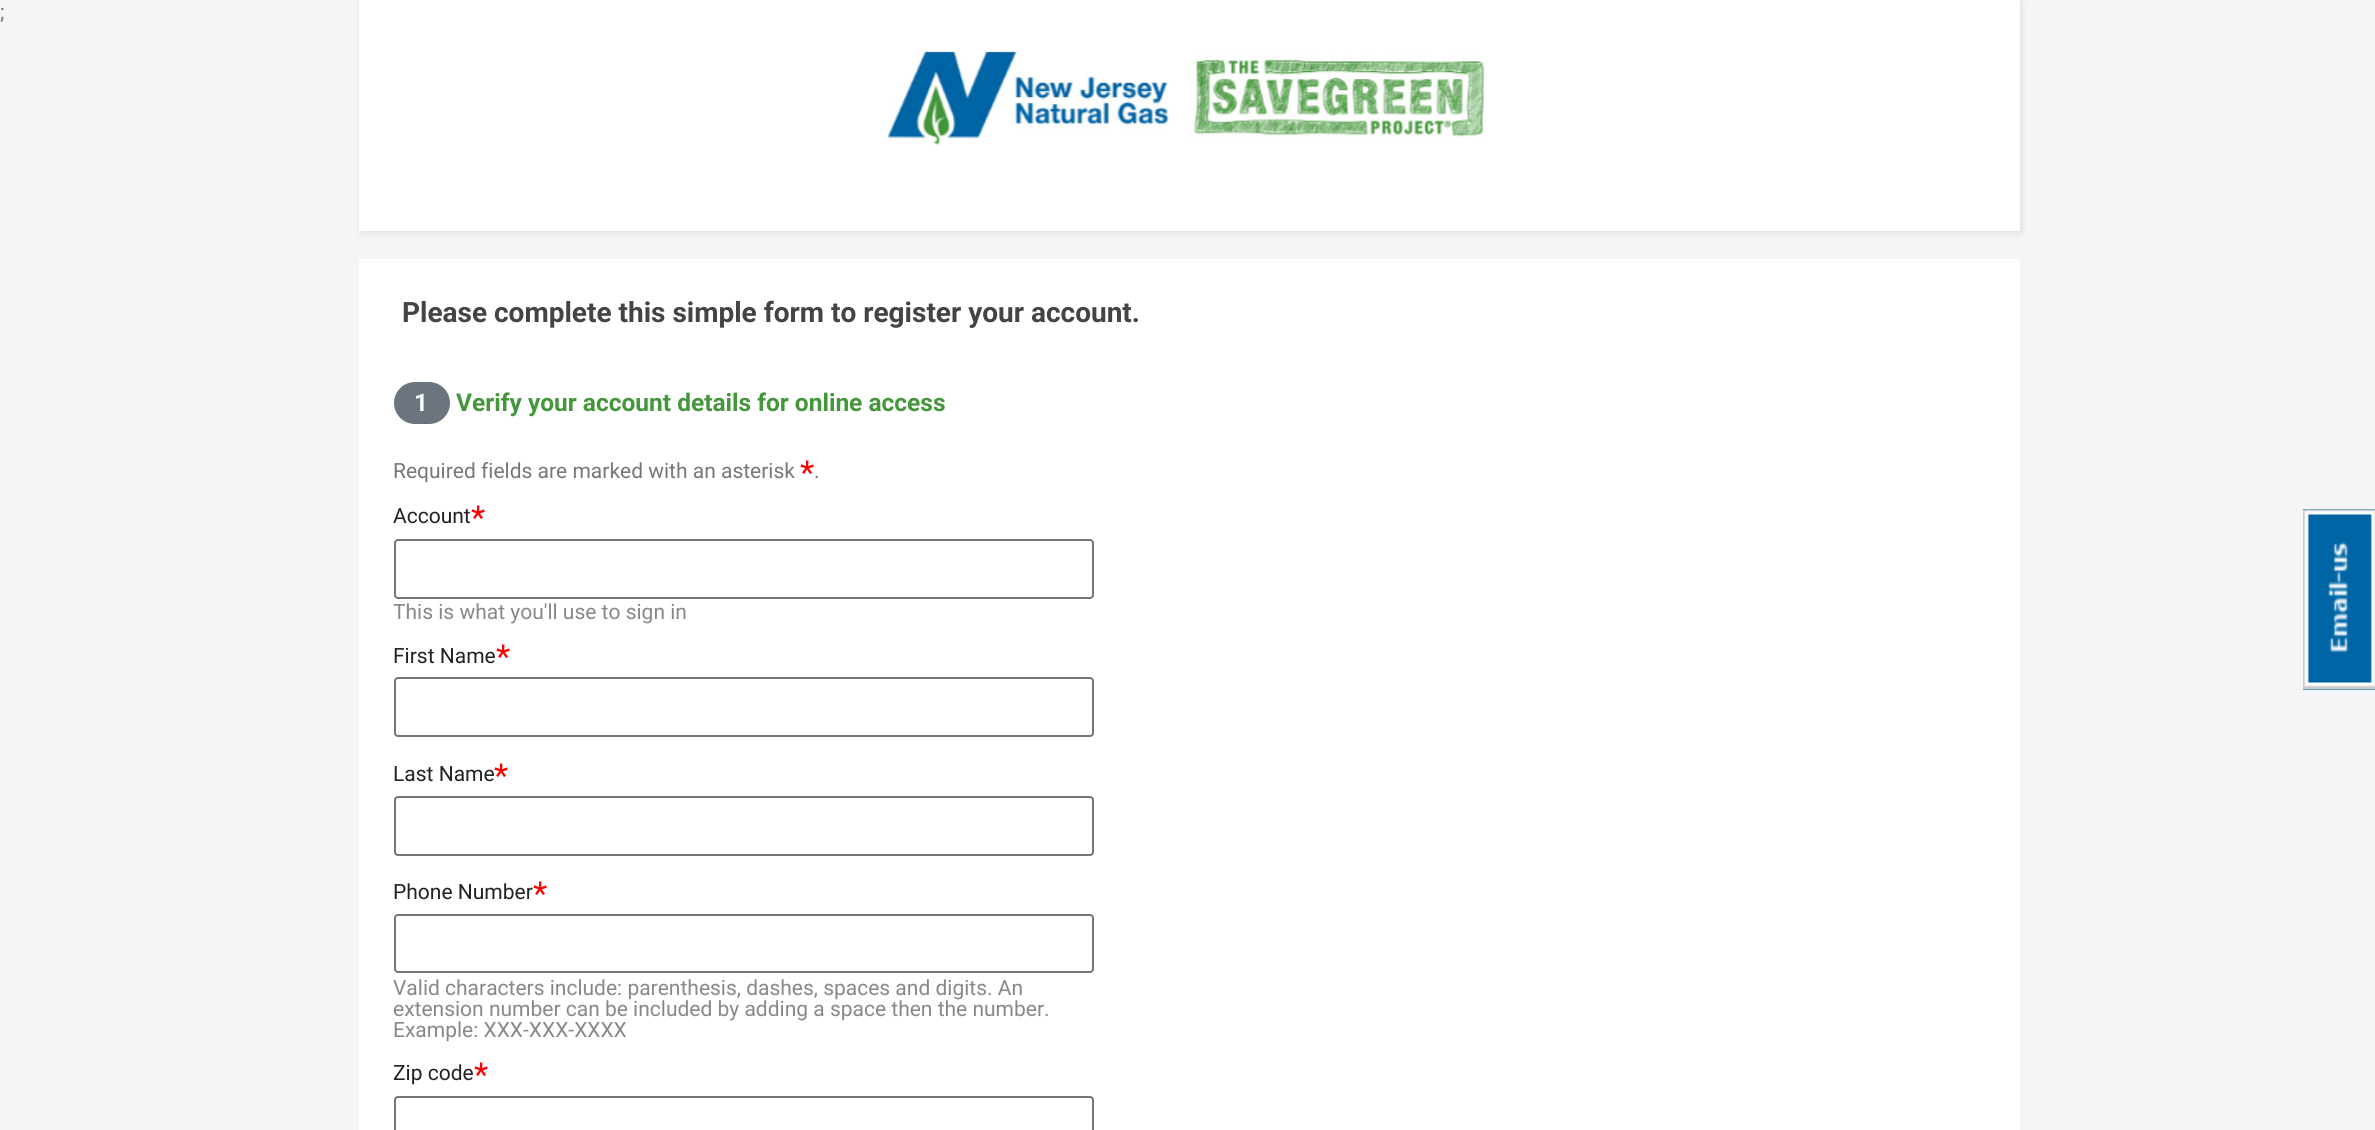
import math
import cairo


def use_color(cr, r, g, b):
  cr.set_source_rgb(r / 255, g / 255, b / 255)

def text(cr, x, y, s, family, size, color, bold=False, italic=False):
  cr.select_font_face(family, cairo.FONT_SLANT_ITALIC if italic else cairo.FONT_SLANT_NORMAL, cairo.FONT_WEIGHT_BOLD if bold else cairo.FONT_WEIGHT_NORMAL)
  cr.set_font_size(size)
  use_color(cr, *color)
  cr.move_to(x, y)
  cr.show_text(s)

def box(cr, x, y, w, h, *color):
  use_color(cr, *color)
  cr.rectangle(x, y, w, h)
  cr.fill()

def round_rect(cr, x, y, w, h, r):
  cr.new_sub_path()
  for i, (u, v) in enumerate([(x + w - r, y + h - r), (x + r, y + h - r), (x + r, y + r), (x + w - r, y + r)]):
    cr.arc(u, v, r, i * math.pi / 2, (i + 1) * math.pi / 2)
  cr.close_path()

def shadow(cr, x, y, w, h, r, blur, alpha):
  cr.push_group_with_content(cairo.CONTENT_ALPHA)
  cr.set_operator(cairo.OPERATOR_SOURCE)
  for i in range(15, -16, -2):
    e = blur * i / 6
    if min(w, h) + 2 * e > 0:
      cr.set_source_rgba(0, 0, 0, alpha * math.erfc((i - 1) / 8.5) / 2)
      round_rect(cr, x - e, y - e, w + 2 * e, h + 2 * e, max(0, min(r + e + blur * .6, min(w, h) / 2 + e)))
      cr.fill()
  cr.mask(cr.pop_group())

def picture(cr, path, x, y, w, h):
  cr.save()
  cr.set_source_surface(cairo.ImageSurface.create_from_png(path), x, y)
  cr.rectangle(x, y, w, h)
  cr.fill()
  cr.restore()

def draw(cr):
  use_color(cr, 244, 245, 247)
  cr.paint()
  use_color(cr, 0, 0, 0)
  shadow(cr, 361, 2, 1660, 231, 0, 3.5, 0.1)
  box(cr, 359, 0, 1661, 231, 255, 255, 255)
  picture(cr, "img_01.png", 887, 50, 598, 96)
  box(cr, 359, 259, 1661, 871, 255, 255, 255)
  use_color(cr, 108, 117, 125)
  round_rect(cr, 394, 382, 56, 42, 21)
  cr.fill()
  round_rect(cr, 395, 540, 698, 58, 3)
  use_color(cr, 118, 118, 118)
  cr.stroke()
  round_rect(cr, 395, 678, 698, 58, 3)
  cr.stroke()
  round_rect(cr, 395, 797, 698, 58, 3)
  cr.stroke()
  round_rect(cr, 395, 915, 698, 57, 3)
  cr.stroke()
  round_rect(cr, 395, 1097, 698, 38, 3)
  cr.stroke()
  box(cr, 2303, 509, 72, 181, 0, 101, 165)
  picture(cr, "img_02.png", 2303, 509, 72, 181)
  text(cr, 0, 19, ";", "Roboto", 21, (119, 119, 119))
  text(cr, 402, 322, "Please complete this simple form to register your account.", "Roboto", 28, (68, 68, 68), bold=True)
  text(cr, 414, 411, "1", "Roboto", 24.5, (255, 255, 255), bold=True)
  text(cr, 456, 411, "Verify your account details for online access", "Roboto", 24.5, (67, 150, 58), bold=True)
  text(cr, 393, 478, "Required fields are marked with an asterisk", "Roboto", 21, (119, 119, 119))
  text(cr, 800, 484, "*", "Roboto", 33, (255, 0, 0))
  text(cr, 814, 478, ".", "Roboto", 21, (119, 119, 119))
  text(cr, 393, 523, "Account", "Roboto", 21, (34, 34, 34))
  text(cr, 471, 529, "*", "Roboto", 33, (255, 0, 0))
  text(cr, 393, 619, "This is what you'll use to sign in", "Roboto", 21, (136, 136, 136))
  text(cr, 393, 663, "First Name", "Roboto", 21, (34, 34, 34))
  text(cr, 496, 668, "*", "Roboto", 33, (255, 0, 0))
  text(cr, 393, 781, "Last Name", "Roboto", 21, (34, 34, 34))
  text(cr, 494, 787, "*", "Roboto", 33, (255, 0, 0))
  text(cr, 393, 899, "Phone Number", "Roboto", 21, (34, 34, 34))
  text(cr, 533, 905, "*", "Roboto", 33, (255, 0, 0))
  text(cr, 393, 995, "Valid characters include: parenthesis, dashes, spaces and digits. An", "Roboto", 21, (136, 136, 136))
  text(cr, 393, 1016, "extension number can be included by adding a space then the number.", "Roboto", 21, (136, 136, 136))
  text(cr, 393, 1037, "Example: XXX-XXX-XXXX", "Roboto", 21, (136, 136, 136))
  text(cr, 393, 1080, "Zip code", "Roboto", 21, (34, 34, 34))
  text(cr, 474, 1086, "*", "Roboto", 33, (255, 0, 0))


surface = cairo.ImageSurface(cairo.FORMAT_RGB24, 2375, 1130)
cr = cairo.Context(surface)
options = cairo.FontOptions()
options.set_hint_metrics(cairo.HINT_METRICS_OFF)
options.set_hint_style(cairo.HINT_STYLE_NONE)
cr.set_font_options(options)
cr.set_miter_limit(4)
draw(cr)
surface.write_to_png("out.png")
